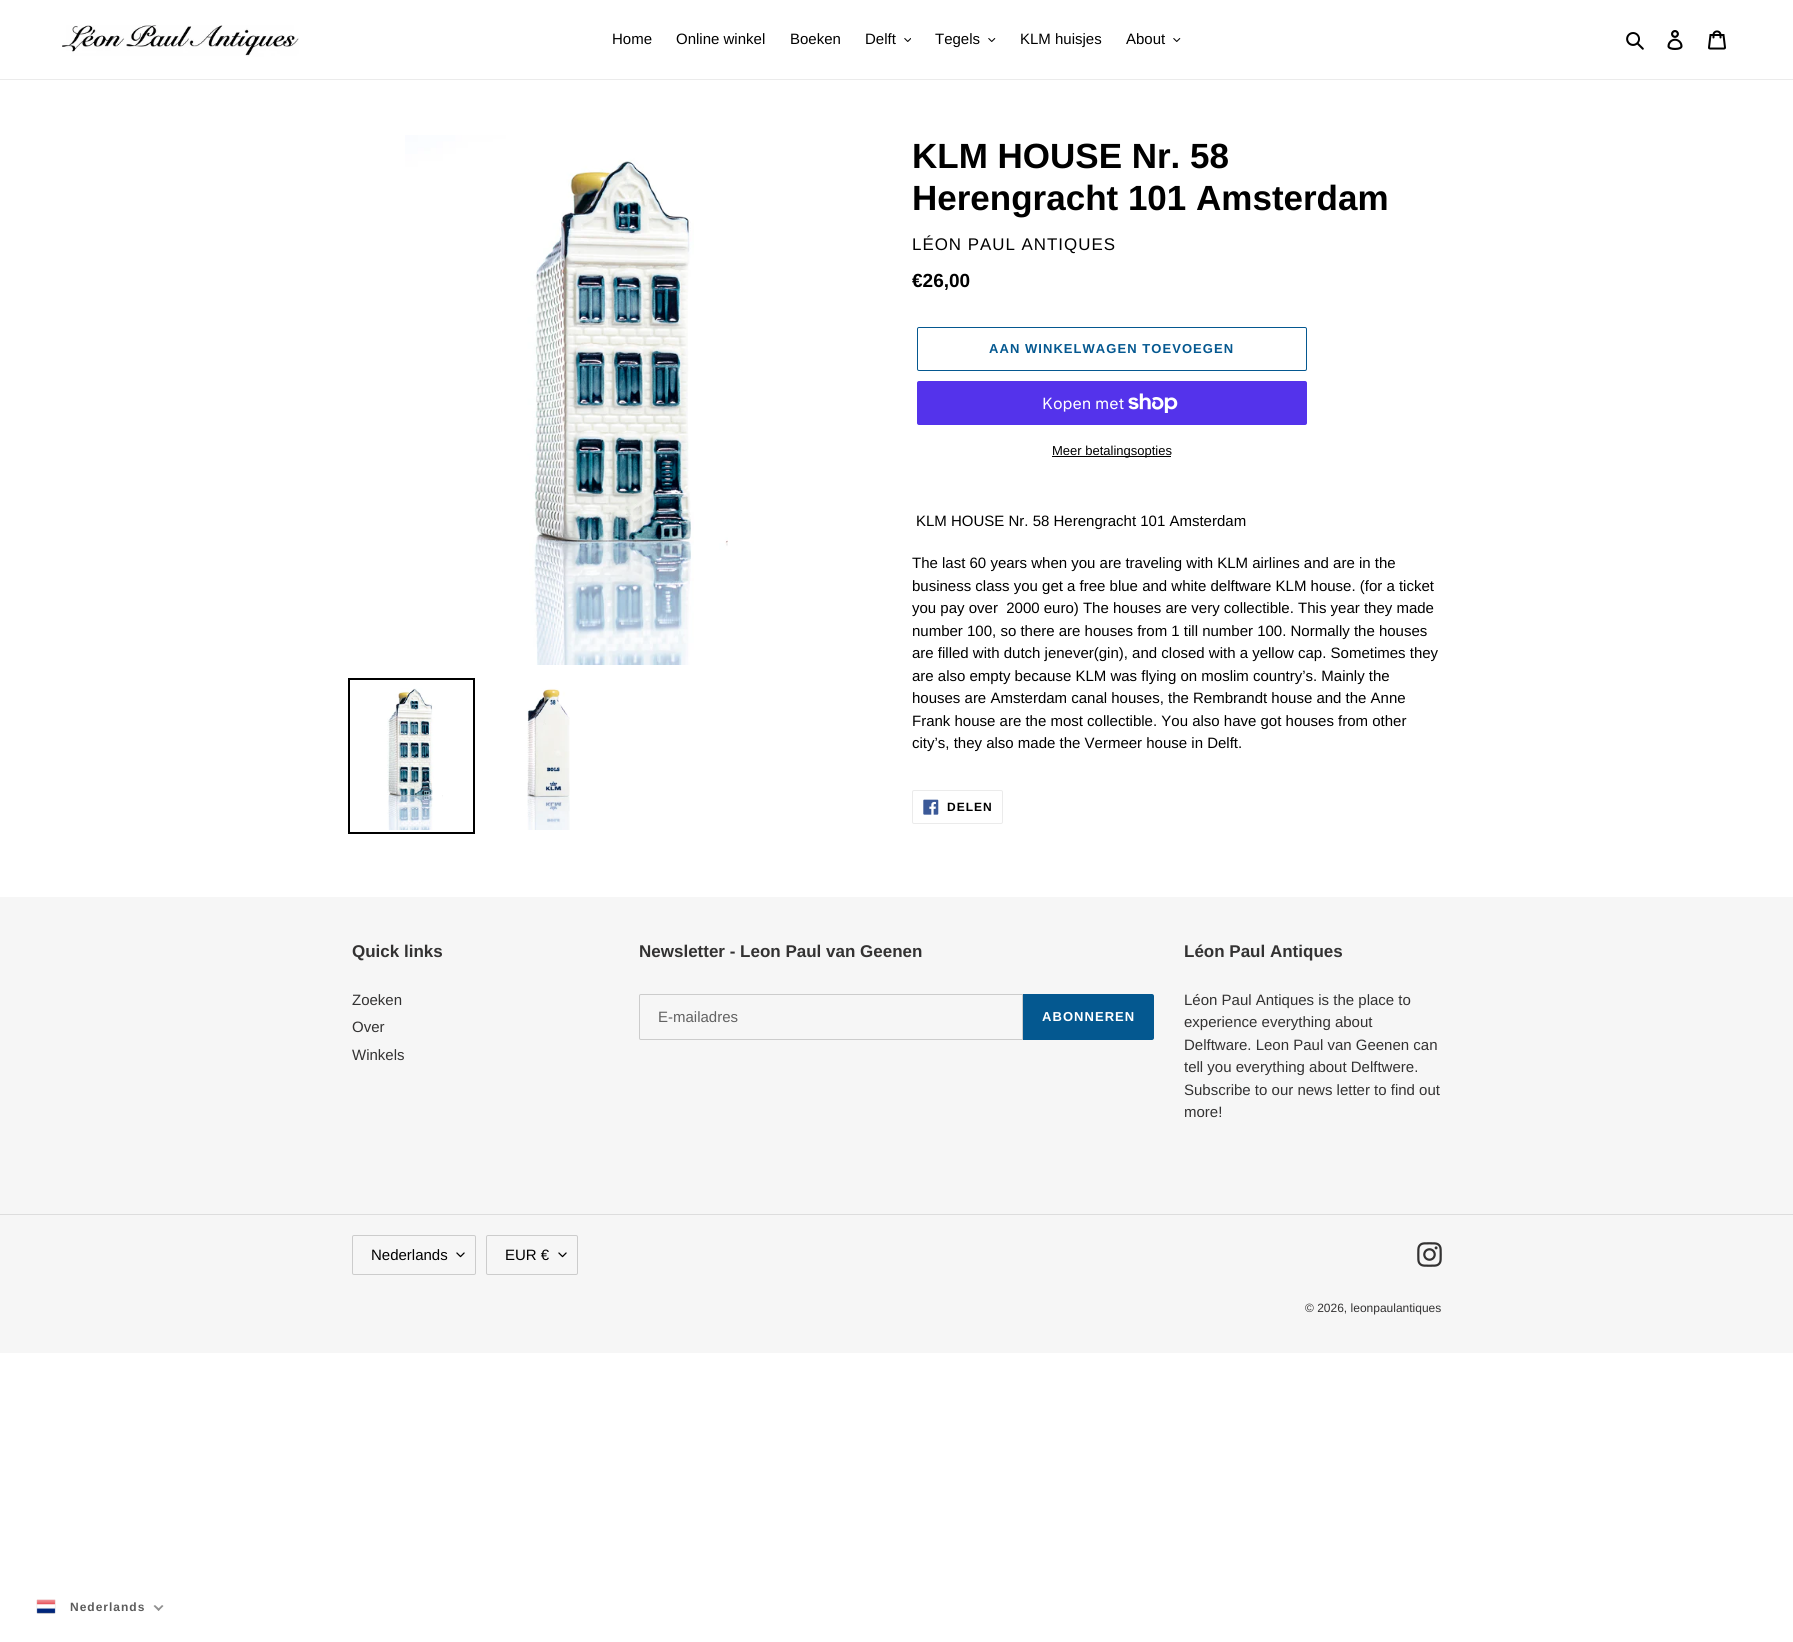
import math
import cairo


def use_color(cr, r, g, b):
  cr.set_source_rgb(r / 255, g / 255, b / 255)

def text(cr, x, y, s, family, size, color, bold=False, italic=False):
  cr.select_font_face(family, cairo.FONT_SLANT_ITALIC if italic else cairo.FONT_SLANT_NORMAL, cairo.FONT_WEIGHT_BOLD if bold else cairo.FONT_WEIGHT_NORMAL)
  cr.set_font_size(size)
  use_color(cr, *color)
  cr.move_to(x, y)
  cr.show_text(s)

def spaced_text(cr, x, y, s, letter, word):
  cr.move_to(x, y)
  for ch in s:
    cr.show_text(ch)
    cr.rel_move_to(letter + word * (ch == ' '), 0)

def box(cr, x, y, w, h, *color):
  use_color(cr, *color)
  cr.rectangle(x, y, w, h)
  cr.fill()

def round_rect(cr, x, y, w, h, r):
  cr.new_sub_path()
  for i, (u, v) in enumerate([(x + w - r, y + h - r), (x + r, y + h - r), (x + r, y + r), (x + w - r, y + r)]):
    cr.arc(u, v, r, i * math.pi / 2, (i + 1) * math.pi / 2)
  cr.close_path()

def picture(cr, path, x, y, w, h):
  cr.save()
  cr.set_source_surface(cairo.ImageSurface.create_from_png(path), x, y)
  cr.rectangle(x, y, w, h)
  cr.fill()
  cr.restore()

def draw(cr):
  use_color(cr, 255, 255, 255)
  cr.paint()
  box(cr, 0, 79, 1793, 1, 235, 235, 235)
  picture(cr, "img_01.png", 62, 25, 237, 32)
  picture(cr, "img_02.png", 904, 38, 7, 4)
  picture(cr, "img_03.png", 988, 38, 8, 4)
  picture(cr, "img_03.png", 1173, 38, 8, 4)
  picture(cr, "img_04.png", 1626, 32, 18, 18)
  picture(cr, "img_05.png", 1667, 30, 16, 20)
  picture(cr, "img_06.png", 1708, 30, 18, 20)
  picture(cr, "img_07.png", 405, 135, 323, 530)
  cr.rectangle(349, 679, 125, 154)
  use_color(cr, 0, 0, 0)
  cr.stroke()
  picture(cr, "img_08.png", 387, 688, 56, 142)
  picture(cr, "img_09.png", 527, 688, 43, 142)
  round_rect(cr, 917.5, 327.5, 389, 43, 1.5)
  use_color(cr, 4, 88, 144)
  cr.set_line_width(1)
  cr.stroke()
  use_color(cr, 84, 51, 235)
  round_rect(cr, 917, 381, 390, 44, 2)
  cr.fill()
  picture(cr, "img_10.png", 1128, 393, 50, 20)
  box(cr, 1052, 456, 119, 1, 0, 0, 0)
  round_rect(cr, 912.5, 790.5, 90, 33, 1.5)
  use_color(cr, 235, 235, 235)
  cr.stroke()
  picture(cr, "img_11.png", 923, 799, 16, 16)
  box(cr, 0, 897, 1793, 456, 246, 246, 246)
  cr.new_path()
  cr.move_to(641, 994.5)
  cr.line_to(1022.5, 994.5)
  cr.line_to(1022.5, 1039.5)
  cr.line_to(641, 1039.5)
  cr.curve_to(640, 1039.5, 639.5, 1039, 639.5, 1038)
  cr.line_to(639.5, 996)
  cr.curve_to(639.5, 995, 640, 994.5, 641, 994.5)
  cr.close_path()
  use_color(cr, 204, 204, 204)
  cr.stroke()
  use_color(cr, 4, 88, 144)
  cr.new_path()
  cr.move_to(1023, 994)
  cr.line_to(1152, 994)
  cr.curve_to(1153, 994, 1154, 995, 1154, 996)
  cr.line_to(1154, 1038)
  cr.curve_to(1154, 1039, 1153, 1040, 1152, 1040)
  cr.line_to(1023, 1040)
  cr.close_path()
  cr.fill()
  box(cr, 0, 1214, 1793, 1, 221, 221, 221)
  picture(cr, "img_12.png", 456, 1252, 9, 6)
  round_rect(cr, 352.5, 1235.5, 123, 39, 1.5)
  use_color(cr, 204, 204, 204)
  cr.stroke()
  picture(cr, "img_12.png", 558, 1252, 9, 6)
  round_rect(cr, 486.5, 1235.5, 91, 39, 1.5)
  cr.stroke()
  picture(cr, "img_13.png", 1417, 1242, 25, 25)
  picture(cr, "img_14.png", 36, 1599, 20, 15)
  use_color(cr, 144, 144, 144)
  cr.new_path()
  cr.move_to(162, 1605)
  cr.line_to(163.5, 1606)
  cr.line_to(158.5, 1611)
  cr.line_to(157.5, 1609.5)
  cr.close_path()
  cr.fill()
  cr.new_path()
  cr.move_to(155, 1605)
  cr.line_to(160, 1609.5)
  cr.line_to(158.5, 1611)
  cr.line_to(153.5, 1606)
  cr.close_path()
  cr.fill()
  text(cr, 612, 44, "Home", "Liberation Sans", 15, (0, 0, 0))
  text(cr, 676, 44, "Online winkel", "Liberation Sans", 15, (0, 0, 0))
  text(cr, 790, 44, "Boeken", "Liberation Sans", 15, (0, 0, 0))
  text(cr, 865, 44, "Delft", "Liberation Sans", 15, (0, 0, 0))
  text(cr, 935, 44, "Tegels", "Liberation Sans", 15, (0, 0, 0))
  text(cr, 1020, 44, "KLM huisjes", "Liberation Sans", 15, (0, 0, 0))
  text(cr, 1126, 44, "About", "Liberation Sans", 15, (0, 0, 0))
  text(cr, 912, 168, "KLM HOUSE Nr. 58", "Liberation Sans", 35, (0, 0, 0), bold=True)
  text(cr, 912, 210, "Herengracht 101 Amsterdam", "Liberation Sans", 35, (0, 0, 0), bold=True)
  cr.select_font_face("Liberation Sans")
  cr.set_font_size(16.9)
  spaced_text(cr, 912, 250, "LÉON PAUL ANTIQUES", 1, 0)
  text(cr, 912, 287, "€26,00", "Liberation Sans", 19, (0, 0, 0), bold=True)
  cr.set_font_size(13)
  use_color(cr, 4, 88, 144)
  spaced_text(cr, 989, 353, "AAN WINKELWAGEN TOEVOEGEN", 1.05, 0)
  text(cr, 1042, 409, "Kopen met", "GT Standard", 16, (255, 255, 255))
  text(cr, 1052, 455, "Meer betalingsopties", "Liberation Sans", 13, (0, 0, 0))
  text(cr, 916, 526, "KLM HOUSE Nr. 58 Herengracht 101 Amsterdam", "Liberation Sans", 15, (0, 0, 0))
  text(cr, 912, 568, "The last 60 years when you are traveling with KLM airlines and are in the", "Liberation Sans", 15, (0, 0, 0))
  text(cr, 912, 591, "business class you get a free blue and white delftware KLM house. (for a ticket", "Liberation Sans", 15, (0, 0, 0))
  text(cr, 912, 613, "you pay over  2000 euro) The houses are very collectible. This year they made", "Liberation Sans", 15, (0, 0, 0))
  text(cr, 912, 636, "number 100, so there are houses from 1 till number 100. Normally the houses", "Liberation Sans", 15, (0, 0, 0))
  text(cr, 912, 658, "are filled with dutch jenever(gin), and closed with a yellow cap. Sometimes they", "Liberation Sans", 15, (0, 0, 0))
  text(cr, 912, 681, "are also empty because KLM was flying on moslim country’s. Mainly the", "Liberation Sans", 15, (0, 0, 0))
  text(cr, 912, 703, "houses are Amsterdam canal houses, the Rembrandt house and the Anne", "Liberation Sans", 15, (0, 0, 0))
  text(cr, 912, 726, "Frank house are the most collectible. You also have got houses from other", "Liberation Sans", 15, (0, 0, 0))
  text(cr, 912, 748, "city’s, they also made the Vermeer house in Delft.", "Liberation Sans", 15, (0, 0, 0))
  cr.select_font_face("Liberation Sans", cairo.FONT_SLANT_NORMAL, cairo.FONT_WEIGHT_BOLD)
  cr.set_font_size(12)
  spaced_text(cr, 947, 811, "DELEN", 1, 0)
  text(cr, 352, 957, "Quick links", "Liberation Sans", 17, (51, 50, 50), bold=True)
  text(cr, 352, 1005, "Zoeken", "Liberation Sans", 15, (51, 50, 50))
  text(cr, 352, 1032, "Over", "Liberation Sans", 15, (51, 50, 50))
  text(cr, 352, 1060, "Winkels", "Liberation Sans", 15, (51, 50, 50))
  text(cr, 639, 957, "Newsletter - Leon Paul van Geenen", "Liberation Sans", 17, (51, 50, 50), bold=True)
  text(cr, 658, 1022, "E-mailadres", "Liberation Sans", 15, (98, 98, 98))
  cr.select_font_face("Liberation Sans", cairo.FONT_SLANT_NORMAL, cairo.FONT_WEIGHT_BOLD)
  cr.set_font_size(13)
  use_color(cr, 255, 255, 255)
  spaced_text(cr, 1042, 1021, "ABONNEREN", 1.05, 0)
  text(cr, 1184, 957, "Léon Paul Antiques", "Liberation Sans", 17, (51, 50, 50), bold=True)
  text(cr, 1184, 1005, "Léon Paul Antiques is the place to", "Liberation Sans", 15, (51, 50, 50))
  text(cr, 1184, 1027, "experience everything about", "Liberation Sans", 15, (51, 50, 50))
  text(cr, 1184, 1050, "Delftware. Leon Paul van Geenen can", "Liberation Sans", 15, (51, 50, 50))
  text(cr, 1184, 1072, "tell you everything about Delftwere.", "Liberation Sans", 15, (51, 50, 50))
  text(cr, 1184, 1095, "Subscribe to our news letter to find out", "Liberation Sans", 15, (51, 50, 50))
  text(cr, 1184, 1117, "more!", "Liberation Sans", 15, (51, 50, 50))
  text(cr, 371, 1260, "Nederlands", "Liberation Sans", 15, (0, 0, 0))
  text(cr, 505, 1260, "EUR €", "Liberation Sans", 15, (0, 0, 0))
  text(cr, 1305, 1312, "© 2026, leonpaulantiques", "Liberation Sans", 12, (51, 50, 50))
  cr.select_font_face("Liberation Sans", cairo.FONT_SLANT_NORMAL, cairo.FONT_WEIGHT_BOLD)
  use_color(cr, 92, 92, 92)
  spaced_text(cr, 70, 1611, "Nederlands", 1, 0)


surface = cairo.ImageSurface(cairo.FORMAT_RGB24, 1793, 1642)
cr = cairo.Context(surface)
options = cairo.FontOptions()
options.set_hint_metrics(cairo.HINT_METRICS_OFF)
options.set_hint_style(cairo.HINT_STYLE_NONE)
cr.set_font_options(options)
cr.set_miter_limit(4)
draw(cr)
surface.write_to_png("out.png")
